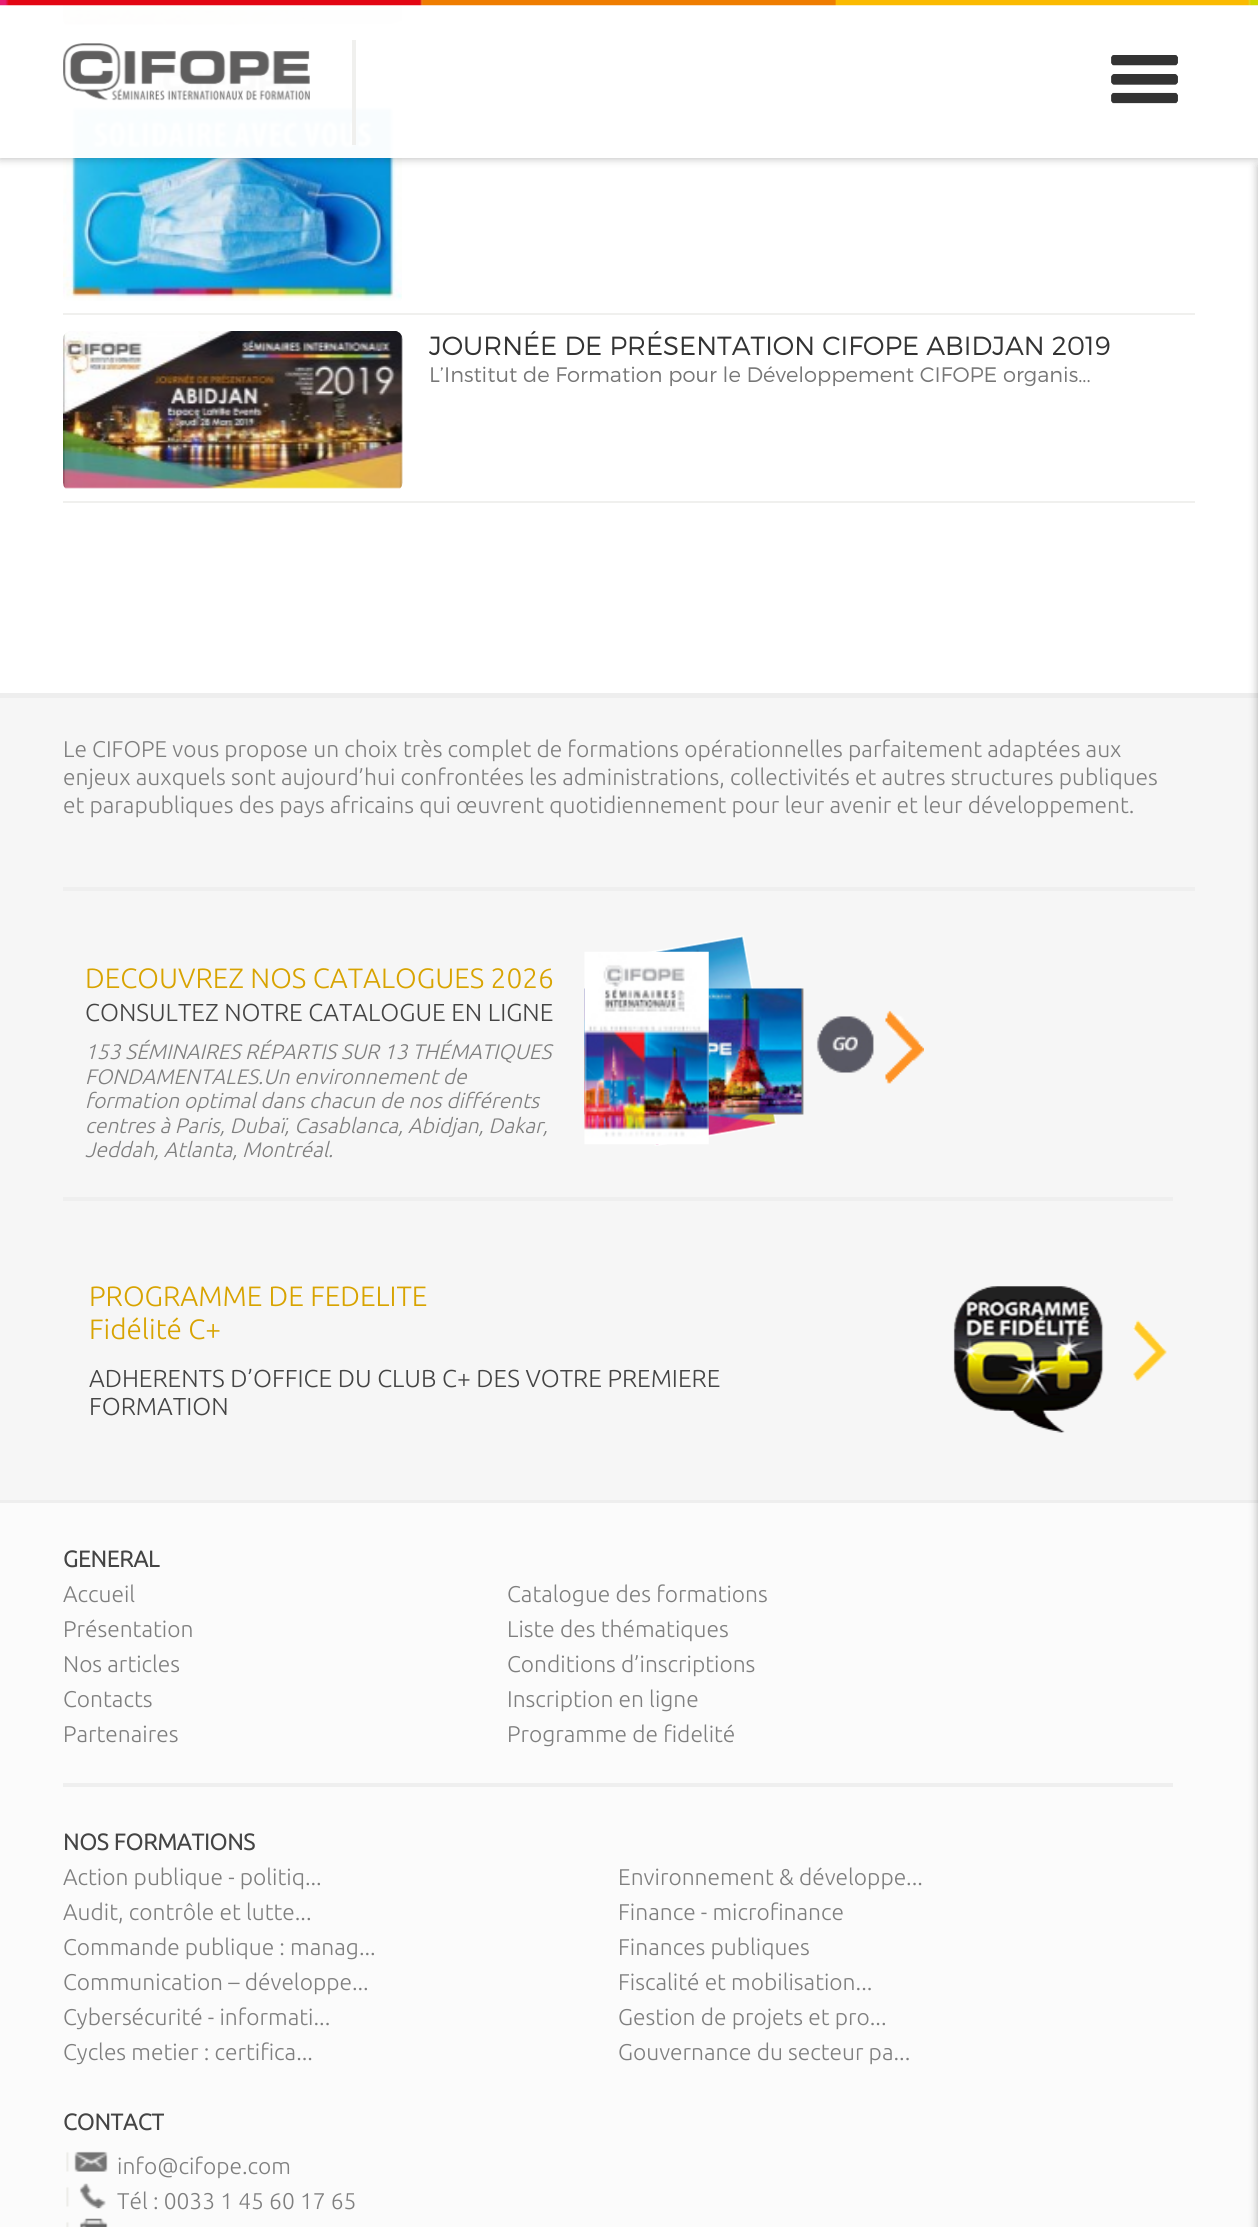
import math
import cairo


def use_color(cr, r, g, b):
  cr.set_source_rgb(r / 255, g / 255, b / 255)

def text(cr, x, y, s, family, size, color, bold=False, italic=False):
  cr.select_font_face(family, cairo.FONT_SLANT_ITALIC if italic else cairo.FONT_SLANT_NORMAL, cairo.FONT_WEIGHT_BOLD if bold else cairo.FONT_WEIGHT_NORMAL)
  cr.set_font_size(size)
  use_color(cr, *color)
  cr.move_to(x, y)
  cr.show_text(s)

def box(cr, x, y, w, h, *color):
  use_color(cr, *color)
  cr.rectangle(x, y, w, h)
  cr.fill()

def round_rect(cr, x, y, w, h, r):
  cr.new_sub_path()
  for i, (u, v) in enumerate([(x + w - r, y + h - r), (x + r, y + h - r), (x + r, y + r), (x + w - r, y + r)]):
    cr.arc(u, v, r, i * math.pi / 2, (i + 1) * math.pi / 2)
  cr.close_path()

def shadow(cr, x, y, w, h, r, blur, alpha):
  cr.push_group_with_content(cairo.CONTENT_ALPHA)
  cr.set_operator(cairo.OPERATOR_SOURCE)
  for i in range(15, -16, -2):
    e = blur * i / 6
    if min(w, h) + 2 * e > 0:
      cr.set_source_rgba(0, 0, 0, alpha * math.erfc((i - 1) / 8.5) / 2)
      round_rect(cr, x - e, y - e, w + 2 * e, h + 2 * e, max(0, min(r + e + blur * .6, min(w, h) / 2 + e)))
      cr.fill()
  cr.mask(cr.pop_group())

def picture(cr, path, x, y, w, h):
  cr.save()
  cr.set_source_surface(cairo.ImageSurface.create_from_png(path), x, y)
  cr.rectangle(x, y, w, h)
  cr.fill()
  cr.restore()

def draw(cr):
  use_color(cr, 255, 255, 255)
  cr.paint()
  picture(cr, "img_04.png", 63, 5, 340, 20)
  box(cr, 63, 37, 1132, 2, 240, 240, 238)
  picture(cr, "img_05.png", 63, 64, 339, 237)
  cr.save()
  cr.set_fill_rule(cairo.FILL_RULE_EVEN_ODD)
  cr.new_path()
  cr.move_to(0, 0)
  cr.line_to(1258, 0)
  cr.line_to(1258, 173)
  cr.line_to(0, 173)
  cr.close_path()
  cr.move_to(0, 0)
  cr.line_to(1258, 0)
  cr.line_to(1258, 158)
  cr.line_to(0, 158)
  cr.close_path()
  cr.clip()
  use_color(cr, 0, 0, 0)
  shadow(cr, 0, 0, 1258, 158, 0, 4.5, 0.3)
  cr.restore()
  box(cr, 0, 698, 1258, 802, 246, 246, 246)
  box(cr, 0, 693, 1258, 5, 238, 238, 238)
  box(cr, 0, 1500, 1258, 3, 238, 238, 238)
  box(cr, 0, 1503, 1258, 724, 251, 251, 251)
  use_color(cr, 0, 0, 0)
  shadow(cr, 1258, 166, 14, 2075, 0, 4.5, 0.3)
  cr.set_source_rgba(1, 1, 1, 0.97)
  cr.rectangle(0, 5, 1258, 153)
  cr.fill()
  picture(cr, "img_01.png", 0, 0, 1258, 6)
  picture(cr, "img_02.png", 63, 43, 247, 58)
  box(cr, 352, 40, 4, 105, 240, 240, 238)
  picture(cr, "img_03.png", 1111, 55, 67, 49)
  box(cr, 63, 313, 1132, 2, 240, 240, 238)
  picture(cr, "img_06.png", 63, 331, 340, 158)
  box(cr, 63, 501, 1132, 2, 240, 240, 238)
  box(cr, 63, 887, 1132, 4, 239, 239, 239)
  picture(cr, "img_08.png", 647, 935, 130, 211)
  picture(cr, "img_09.png", 584, 988, 340, 127)
  picture(cr, "img_07.png", 584, 951, 125, 194)
  box(cr, 63, 1197, 1110, 4, 239, 239, 239)
  picture(cr, "img_10.png", 953, 1286, 214, 147)
  box(cr, 63, 1783, 1110, 4, 239, 239, 239)
  picture(cr, "img_11.png", 66, 2151, 42, 21)
  picture(cr, "img_12.png", 66, 2183, 40, 26)
  picture(cr, "img_13.png", 66, 2218, 42, 9)
  text(cr, 429, 355, "JOURNÉE DE PRÉSENTATION CIFOPE ABIDJAN 2019", "Montserrat Light", 26.25, (51, 51, 51))
  text(cr, 429, 382, "L’Institut de Formation pour le Développement CIFOPE organis...", "Montserrat Light", 21, (119, 119, 119))
  text(cr, 63, 757, "Le CIFOPE vous propose un choix très complet de formations opérationnelles parfaitement adaptées aux", "Ubuntu Light", 22.75, (127, 127, 127))
  text(cr, 63, 785, "enjeux auxquels sont aujourd’hui confrontées les administrations, collectivités et autres structures publiques", "Ubuntu Light", 22.75, (127, 127, 127))
  text(cr, 63, 813, "et parapubliques des pays africains qui œuvrent quotidiennement pour leur avenir et leur développement.", "Ubuntu Light", 22.75, (127, 127, 127))
  text(cr, 85, 988, "DECOUVREZ NOS CATALOGUES 2026", "Ubuntu Light", 28, (216, 163, 0))
  text(cr, 85, 1021, "CONSULTEZ NOTRE CATALOGUE EN LIGNE", "Ubuntu Light", 24.5, (68, 68, 68))
  text(cr, 85, 1059, "153 SÉMINAIRES RÉPARTIS SUR 13 THÉMATIQUES", "Ubuntu Light", 21, (127, 127, 127), italic=True)
  text(cr, 85, 1084, "FONDAMENTALES.Un environnement de", "Ubuntu Light", 21, (127, 127, 127), italic=True)
  text(cr, 85, 1108, "formation optimal dans chacun de nos différents", "Ubuntu Light", 21, (127, 127, 127), italic=True)
  text(cr, 85, 1133, "centres à Paris, Dubaï, Casablanca, Abidjan, Dakar,", "Ubuntu Light", 21, (127, 127, 127), italic=True)
  text(cr, 85, 1157, "Jeddah, Atlanta, Montréal.", "Ubuntu Light", 21, (127, 127, 127), italic=True)
  text(cr, 89, 1306, "PROGRAMME DE FEDELITE", "Ubuntu Light", 28, (216, 163, 0))
  text(cr, 89, 1339, "Fidélité C+", "Ubuntu Light", 28, (216, 163, 0))
  text(cr, 89, 1387, "ADHERENTS D’OFFICE DU CLUB C+ DES VOTRE PREMIERE", "Ubuntu Light", 24.5, (68, 68, 68))
  text(cr, 89, 1415, "FORMATION", "Ubuntu Light", 24.5, (68, 68, 68))
  text(cr, 63, 1567, "GENERAL", "Ubuntu", 22.75, (68, 68, 68), bold=True)
  text(cr, 63, 1602, "Accueil", "Ubuntu Light", 22.75, (127, 127, 127))
  text(cr, 63, 1637, "Présentation", "Ubuntu Light", 22.75, (127, 127, 127))
  text(cr, 63, 1672, "Nos articles", "Ubuntu Light", 22.75, (127, 127, 127))
  text(cr, 63, 1707, "Contacts", "Ubuntu Light", 22.75, (127, 127, 127))
  text(cr, 63, 1742, "Partenaires", "Ubuntu Light", 22.75, (127, 127, 127))
  text(cr, 507, 1602, "Catalogue des formations", "Ubuntu Light", 22.75, (127, 127, 127))
  text(cr, 507, 1637, "Liste des thématiques", "Ubuntu Light", 22.75, (127, 127, 127))
  text(cr, 507, 1672, "Conditions d’inscriptions", "Ubuntu Light", 22.75, (127, 127, 127))
  text(cr, 507, 1707, "Inscription en ligne", "Ubuntu Light", 22.75, (127, 127, 127))
  text(cr, 507, 1742, "Programme de fidelité", "Ubuntu Light", 22.75, (127, 127, 127))
  text(cr, 63, 1850, "NOS FORMATIONS", "Ubuntu", 22.75, (68, 68, 68), bold=True)
  text(cr, 63, 1885, "Action publique - politiq...", "Ubuntu Light", 22.75, (127, 127, 127))
  text(cr, 63, 1920, "Audit, contrôle et lutte...", "Ubuntu Light", 22.75, (127, 127, 127))
  text(cr, 63, 1955, "Commande publique : manag...", "Ubuntu Light", 22.75, (127, 127, 127))
  text(cr, 63, 1990, "Communication – développe...", "Ubuntu Light", 22.75, (127, 127, 127))
  text(cr, 63, 2025, "Cybersécurité - informati...", "Ubuntu Light", 22.75, (127, 127, 127))
  text(cr, 63, 2060, "Cycles metier : certifica...", "Ubuntu Light", 22.75, (127, 127, 127))
  text(cr, 618, 1885, "Environnement & développe...", "Ubuntu Light", 22.75, (127, 127, 127))
  text(cr, 618, 1920, "Finance - microfinance", "Ubuntu Light", 22.75, (127, 127, 127))
  text(cr, 618, 1955, "Finances publiques", "Ubuntu Light", 22.75, (127, 127, 127))
  text(cr, 618, 1990, "Fiscalité et mobilisation...", "Ubuntu Light", 22.75, (127, 127, 127))
  text(cr, 618, 2025, "Gestion de projets et pro...", "Ubuntu Light", 22.75, (127, 127, 127))
  text(cr, 618, 2060, "Gouvernance du secteur pa...", "Ubuntu Light", 22.75, (127, 127, 127))
  text(cr, 63, 2130, "CONTACT", "Ubuntu", 22.75, (68, 68, 68), bold=True)
  text(cr, 117, 2174, "info@cifope.com", "Ubuntu Light", 22.75, (127, 127, 127))
  text(cr, 117, 2209, "Tél : 0033 1 45 60 17 65", "Ubuntu Light", 22.75, (127, 127, 127))


surface = cairo.ImageSurface(cairo.FORMAT_RGB24, 1258, 2227)
cr = cairo.Context(surface)
options = cairo.FontOptions()
options.set_hint_metrics(cairo.HINT_METRICS_OFF)
options.set_hint_style(cairo.HINT_STYLE_NONE)
cr.set_font_options(options)
cr.set_miter_limit(4)
draw(cr)
surface.write_to_png("out.png")
